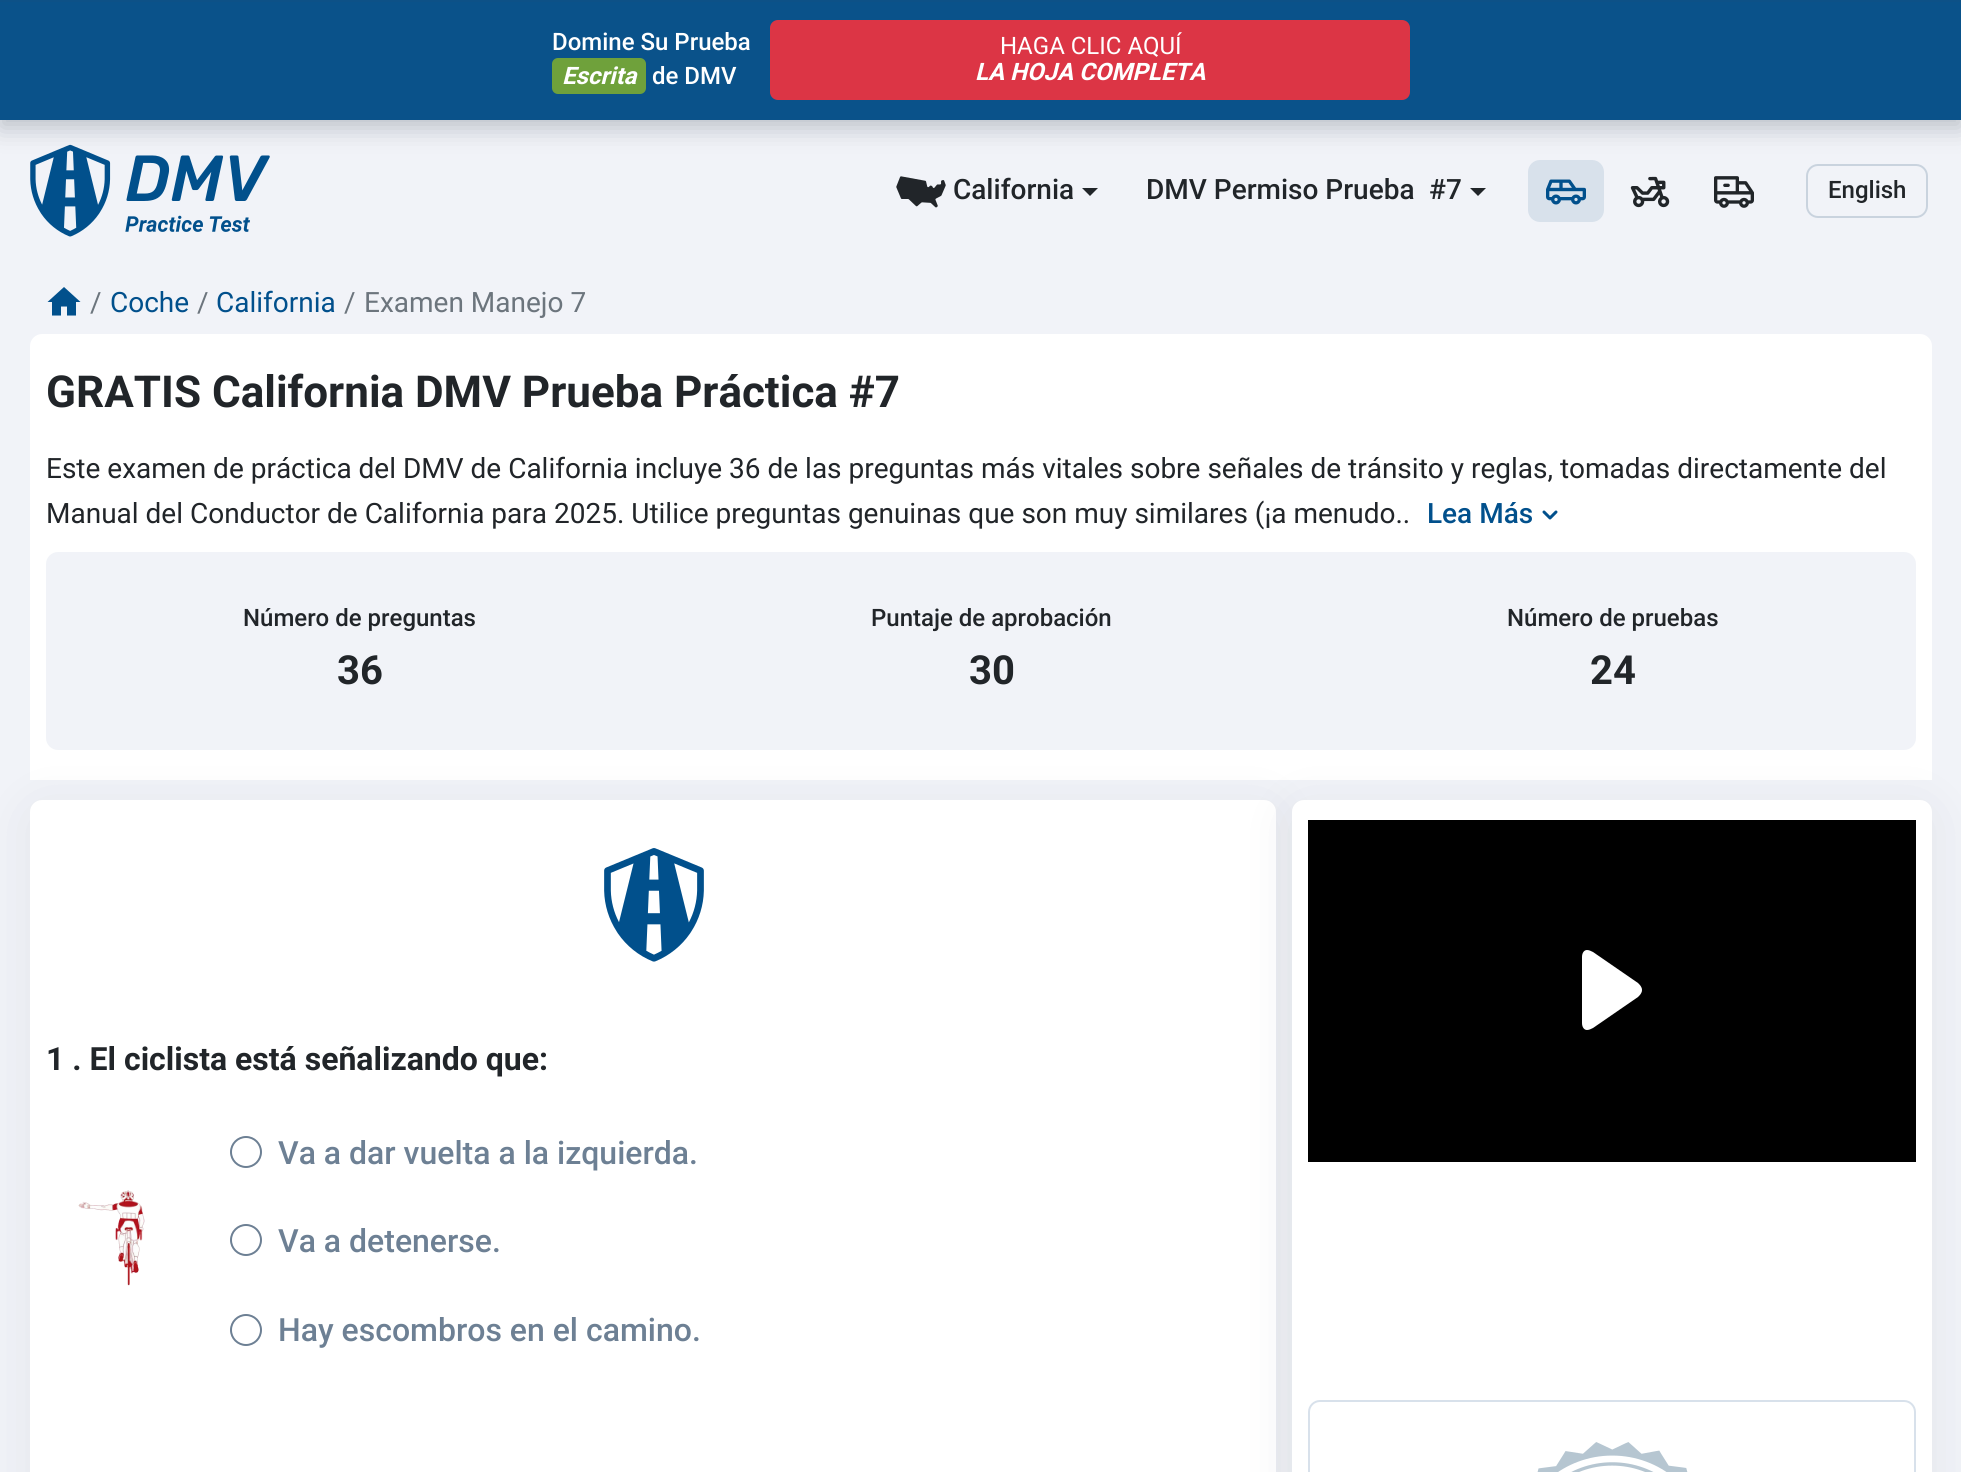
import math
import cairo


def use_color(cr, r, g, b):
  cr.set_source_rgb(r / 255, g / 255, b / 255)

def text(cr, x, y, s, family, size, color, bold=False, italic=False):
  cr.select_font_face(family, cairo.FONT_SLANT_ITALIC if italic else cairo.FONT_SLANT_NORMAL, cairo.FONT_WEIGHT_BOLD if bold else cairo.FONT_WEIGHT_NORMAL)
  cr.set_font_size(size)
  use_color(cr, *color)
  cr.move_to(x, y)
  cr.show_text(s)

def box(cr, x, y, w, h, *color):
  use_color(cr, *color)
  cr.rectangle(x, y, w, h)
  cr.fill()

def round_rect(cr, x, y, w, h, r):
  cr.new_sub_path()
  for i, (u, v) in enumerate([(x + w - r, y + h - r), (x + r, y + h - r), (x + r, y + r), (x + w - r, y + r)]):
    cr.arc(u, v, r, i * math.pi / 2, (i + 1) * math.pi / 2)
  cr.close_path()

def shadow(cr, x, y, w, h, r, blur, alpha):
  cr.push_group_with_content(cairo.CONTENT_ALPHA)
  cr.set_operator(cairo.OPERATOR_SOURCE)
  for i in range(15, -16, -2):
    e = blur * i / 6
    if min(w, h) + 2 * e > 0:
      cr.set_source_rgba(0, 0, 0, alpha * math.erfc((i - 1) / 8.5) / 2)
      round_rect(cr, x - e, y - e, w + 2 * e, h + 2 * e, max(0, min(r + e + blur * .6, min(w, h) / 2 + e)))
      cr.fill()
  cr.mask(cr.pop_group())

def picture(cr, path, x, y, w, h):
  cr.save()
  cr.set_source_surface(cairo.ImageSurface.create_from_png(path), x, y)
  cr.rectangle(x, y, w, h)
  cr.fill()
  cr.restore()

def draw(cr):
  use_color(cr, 241, 243, 248)
  cr.paint()
  picture(cr, "img_01.png", 30, 144, 240, 93)
  use_color(cr, 216, 225, 235)
  round_rect(cr, 1528, 160, 76, 62, 12)
  cr.fill()
  round_rect(cr, 1807, 165, 120, 52, 11)
  use_color(cr, 201, 211, 222)
  cr.stroke()
  use_color(cr, 59, 72, 87)
  shadow(cr, 0, 8, 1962, 120, 0, 12, 0.3)
  box(cr, 0, 2, 1961, 118, 10, 82, 138)
  box(cr, 0, 0, 1961, 2, 13, 81, 135)
  use_color(cr, 111, 161, 59)
  round_rect(cr, 552, 58, 94, 36, 6)
  cr.fill()
  use_color(cr, 220, 53, 69)
  round_rect(cr, 771, 21, 638, 78, 7)
  cr.fill_preserve()
  cr.stroke()
  picture(cr, "img_02.png", 896, 176, 50, 32)
  use_color(cr, 33, 37, 41)
  cr.new_path()
  cr.move_to(1090, 196)
  cr.line_to(1098, 188)
  cr.line_to(1082, 188)
  cr.close_path()
  cr.fill()
  cr.new_path()
  cr.move_to(1478, 196)
  cr.line_to(1486, 188)
  cr.line_to(1470, 188)
  cr.close_path()
  cr.fill()
  picture(cr, "img_03.png", 1546, 179, 40, 26)
  picture(cr, "img_04.png", 1630, 176, 40, 32)
  picture(cr, "img_05.png", 1714, 176, 40, 32)
  use_color(cr, 1, 80, 140)
  cr.new_path()
  cr.move_to(64, 287)
  cr.line_to(47.5, 302)
  cr.line_to(52, 302)
  cr.line_to(52, 315.5)
  cr.line_to(61, 315.5)
  cr.line_to(61, 306.5)
  cr.line_to(67, 306.5)
  cr.line_to(67, 315.5)
  cr.line_to(76, 315.5)
  cr.line_to(76, 302)
  cr.line_to(80.5, 302)
  cr.close_path()
  cr.fill()
  use_color(cr, 255, 255, 255)
  cr.new_path()
  cr.move_to(42, 334)
  cr.line_to(1920, 334)
  cr.curve_to(1926.5, 334, 1932, 339.5, 1932, 346)
  cr.line_to(1932, 780)
  cr.line_to(30, 780)
  cr.line_to(30, 346)
  cr.curve_to(30, 339.5, 35.5, 334, 42, 334)
  cr.close_path()
  cr.fill()
  picture(cr, "img_06.png", 1542, 510, 16, 10)
  use_color(cr, 241, 243, 248)
  round_rect(cr, 46, 552, 1870, 198, 12)
  cr.fill()
  use_color(cr, 59, 72, 87)
  shadow(cr, 30, 808, 1246, 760, 12, 28, 0.08)
  use_color(cr, 255, 255, 255)
  round_rect(cr, 30, 800, 1246, 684, 12)
  cr.fill()
  picture(cr, "img_07.png", 604, 848, 100, 114)
  picture(cr, "img_08.png", 78, 1190, 67, 96)
  cr.arc(246, 1152, 15, 0, 2 * math.pi)
  use_color(cr, 109, 128, 148)
  cr.stroke()
  cr.arc(246, 1240, 15, 0, 2 * math.pi)
  cr.stroke()
  cr.arc(246, 1330, 15, 0, 2 * math.pi)
  cr.stroke()
  use_color(cr, 59, 72, 87)
  shadow(cr, 1292, 808, 640, 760, 12, 28, 0.08)
  use_color(cr, 255, 255, 255)
  round_rect(cr, 1292, 800, 640, 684, 12)
  cr.fill()
  box(cr, 1308, 820, 608, 342, 0, 0, 0)
  use_color(cr, 255, 255, 255)
  cr.new_path()
  cr.move_to(1638, 983)
  cr.line_to(1593, 952)
  cr.curve_to(1591, 951, 1589, 950, 1587, 950)
  cr.curve_to(1584, 950, 1582, 953, 1582, 957)
  cr.line_to(1582, 1023)
  cr.curve_to(1582, 1027, 1584, 1030, 1587, 1030)
  cr.curve_to(1589, 1030, 1591, 1029, 1593, 1028)
  cr.line_to(1638, 997)
  cr.curve_to(1640, 995, 1642, 993, 1642, 990)
  cr.curve_to(1642, 987, 1640, 985, 1638, 983)
  cr.close_path()
  cr.fill()
  round_rect(cr, 1309, 1401, 606, 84, 11)
  use_color(cr, 216, 225, 235)
  cr.stroke()
  picture(cr, "img_09.png", 1537, 1442, 151, 30)
  text(cr, 552, 50, "Domine Su Prueba", "Roboto Medium", 24, (255, 255, 255))
  text(cr, 562, 84, "Escrita", "Roboto", 24, (255, 255, 255), bold=True, italic=True)
  text(cr, 652, 84, "de DMV", "Roboto Medium", 24, (255, 255, 255))
  text(cr, 1000, 54, "HAGA CLIC AQUÍ", "Roboto", 24, (255, 255, 255))
  text(cr, 975, 80, "LA HOJA COMPLETA", "Roboto", 24, (255, 255, 255), bold=True, italic=True)
  text(cr, 953, 199, "California", "Roboto Medium", 28, (33, 37, 41))
  text(cr, 1146, 199, "DMV Permiso Prueba", "Roboto Medium", 28, (33, 37, 41))
  text(cr, 1429, 199, "#7", "Roboto Medium", 28, (33, 37, 41))
  text(cr, 1828, 198, "English", "Roboto Medium", 24, (33, 37, 41))
  text(cr, 90, 312, "/", "Roboto", 28, (108, 117, 125))
  text(cr, 110, 312, "Coche", "Roboto", 28, (1, 80, 140))
  text(cr, 197, 312, "/", "Roboto", 28, (108, 117, 125))
  text(cr, 216, 312, "California", "Roboto", 28, (1, 80, 140))
  text(cr, 344, 312, "/", "Roboto", 28, (108, 117, 125))
  text(cr, 364, 312, "Examen Manejo 7", "Roboto", 28, (108, 117, 125))
  text(cr, 46, 407, "GRATIS California DMV Prueba Práctica #7", "Roboto", 44, (33, 37, 41), bold=True)
  text(cr, 46, 478, "Este examen de práctica del DMV de California incluye 36 de las preguntas más vitales sobre señales de tránsito y reglas, tomadas directamente del", "Roboto", 28, (33, 37, 41))
  text(cr, 46, 523, "Manual del Conductor de California para 2025. Utilice preguntas genuinas que son muy similares (¡a menudo..", "Roboto", 28, (33, 37, 41))
  text(cr, 1427, 523, "Lea Más", "Roboto Medium", 28, (1, 80, 140))
  text(cr, 243, 626, "Número de preguntas", "Roboto Medium", 24, (33, 37, 41))
  text(cr, 337, 684, "36", "Roboto", 40, (33, 37, 41), bold=True)
  text(cr, 871, 626, "Puntaje de aprobación", "Roboto Medium", 24, (33, 37, 41))
  text(cr, 969, 684, "30", "Roboto", 40, (33, 37, 41), bold=True)
  text(cr, 1507, 626, "Número de pruebas", "Roboto Medium", 24, (33, 37, 41))
  text(cr, 1590, 684, "24", "Roboto", 40, (33, 37, 41), bold=True)
  text(cr, 46, 1070, "1 . El ciclista está señalizando que:", "Roboto", 32, (33, 37, 41), bold=True)
  text(cr, 278, 1164, "Va a dar vuelta a la izquierda.", "Roboto Medium", 32, (109, 128, 148))
  text(cr, 278, 1252, "Va a detenerse.", "Roboto Medium", 32, (109, 128, 148))
  text(cr, 278, 1341, "Hay escombros en el camino.", "Roboto Medium", 32, (109, 128, 148))


surface = cairo.ImageSurface(cairo.FORMAT_RGB24, 1961, 1472)
cr = cairo.Context(surface)
options = cairo.FontOptions()
options.set_hint_metrics(cairo.HINT_METRICS_OFF)
options.set_hint_style(cairo.HINT_STYLE_NONE)
cr.set_font_options(options)
cr.set_miter_limit(4)
draw(cr)
surface.write_to_png("out.png")
